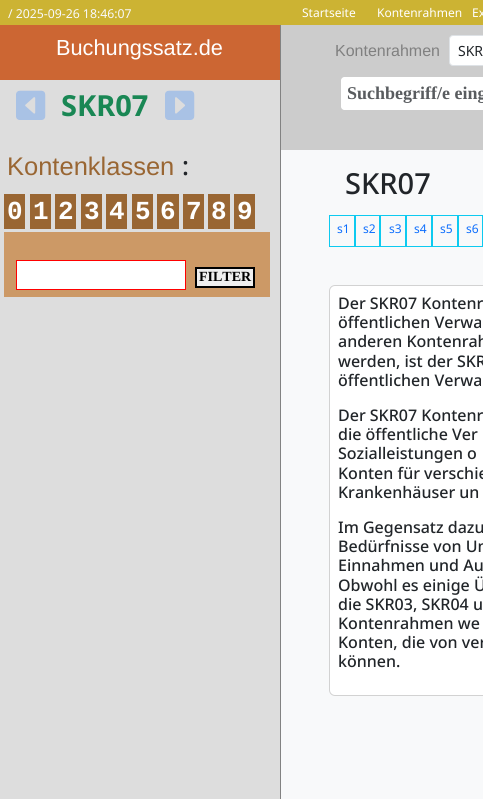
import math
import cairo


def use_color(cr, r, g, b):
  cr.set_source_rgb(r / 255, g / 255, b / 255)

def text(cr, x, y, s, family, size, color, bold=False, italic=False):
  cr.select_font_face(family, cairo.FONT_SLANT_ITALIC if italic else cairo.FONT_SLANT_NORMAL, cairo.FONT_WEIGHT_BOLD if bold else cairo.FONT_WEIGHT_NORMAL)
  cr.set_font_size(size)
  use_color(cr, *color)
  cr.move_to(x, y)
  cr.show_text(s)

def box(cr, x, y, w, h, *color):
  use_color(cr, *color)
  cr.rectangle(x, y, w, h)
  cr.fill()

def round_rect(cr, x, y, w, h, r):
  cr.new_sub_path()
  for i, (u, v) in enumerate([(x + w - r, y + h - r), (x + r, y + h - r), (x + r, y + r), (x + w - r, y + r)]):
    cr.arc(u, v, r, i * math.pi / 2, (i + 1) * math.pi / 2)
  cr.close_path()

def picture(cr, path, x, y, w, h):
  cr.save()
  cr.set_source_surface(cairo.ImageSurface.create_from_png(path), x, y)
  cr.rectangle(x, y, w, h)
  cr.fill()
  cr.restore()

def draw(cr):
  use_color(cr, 130, 130, 130)
  cr.paint()
  box(cr, 0, 0, 483, 25, 204, 179, 51)
  box(cr, 0, 25, 280, 55, 204, 102, 51)
  box(cr, 0, 80, 280, 719, 221, 221, 221)
  picture(cr, "img_01.png", 16, 90, 30, 30)
  picture(cr, "img_02.png", 165, 90, 30, 30)
  box(cr, 281, 25, 202, 125, 204, 204, 204)
  use_color(cr, 255, 255, 255)
  round_rect(cr, 449.5, 35.5, 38, 30, 3.5)
  cr.fill_preserve()
  use_color(cr, 222, 226, 230)
  cr.set_line_width(1)
  cr.stroke()
  use_color(cr, 255, 255, 255)
  round_rect(cr, 341, 77, 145, 33, 3)
  cr.fill()
  round_rect(cr, 340, 76, 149, 35, 4)
  use_color(cr, 204, 204, 204)
  cr.set_line_width(2)
  cr.stroke()
  box(cr, 4, 194, 21, 35, 153, 102, 51)
  box(cr, 30, 194, 21, 35, 153, 102, 51)
  box(cr, 55, 194, 21, 35, 153, 102, 51)
  box(cr, 81, 194, 21, 35, 153, 102, 51)
  box(cr, 106, 194, 21, 35, 153, 102, 51)
  box(cr, 132, 194, 21, 35, 153, 102, 51)
  box(cr, 157, 194, 22, 35, 153, 102, 51)
  box(cr, 183, 194, 21, 35, 153, 102, 51)
  box(cr, 208, 194, 22, 35, 153, 102, 51)
  box(cr, 234, 194, 21, 35, 153, 102, 51)
  box(cr, 4, 232, 266, 65, 204, 153, 102)
  use_color(cr, 255, 255, 255)
  cr.rectangle(16.5, 260.5, 169, 29)
  cr.fill_preserve()
  use_color(cr, 255, 0, 0)
  cr.set_line_width(1)
  cr.stroke()
  use_color(cr, 239, 239, 239)
  cr.rectangle(196, 268, 58, 19)
  cr.fill_preserve()
  use_color(cr, 0, 0, 0)
  cr.set_line_width(2)
  cr.stroke()
  box(cr, 281, 150, 202, 649, 248, 249, 250)
  cr.rectangle(329.5, 215.5, 25, 31)
  use_color(cr, 13, 202, 240)
  cr.set_line_width(1)
  cr.stroke()
  cr.rectangle(355.5, 215.5, 24, 31)
  cr.stroke()
  cr.rectangle(380.5, 215.5, 25, 31)
  cr.stroke()
  cr.rectangle(406.5, 215.5, 25, 31)
  cr.stroke()
  cr.rectangle(432.5, 215.5, 25, 31)
  cr.stroke()
  cr.rectangle(458.5, 215.5, 24, 31)
  cr.stroke()
  use_color(cr, 255, 255, 255)
  round_rect(cr, 329.5, 285.5, 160, 410, 5.5)
  cr.fill_preserve()
  use_color(cr, 210, 210, 210)
  cr.stroke()
  text(cr, 8, 18, "/ 2025-09-26 18:46:07", "Noto Sans", 12.25, (248, 249, 250))
  text(cr, 302, 17, "Startseite", "Noto Sans", 12, (255, 255, 255))
  text(cr, 377, 17, "Kontenrahmen", "Noto Sans", 12, (255, 255, 255))
  text(cr, 472, 17, "Ex", "Noto Sans", 12, (255, 255, 255))
  text(cr, 56, 55, "Buchungssatz.de", "Liberation Sans", 21.75, (255, 255, 255))
  text(cr, 61, 116, "SKR07", "Noto Sans", 29, (25, 135, 84), bold=True)
  text(cr, 335, 56, "Kontenrahmen", "Liberation Sans", 16, (128, 128, 128))
  text(cr, 458, 56, "SKR", "Noto Sans", 14, (33, 37, 41))
  text(cr, 347, 99, "Suchbegriff/e eing", "Liberation Serif", 18, (89, 92, 95), bold=True)
  text(cr, 7, 175, "Kontenklassen", "Liberation Sans", 25.5, (153, 102, 51))
  text(cr, 182, 175, ":", "Noto Sans Medium", 25.5, (33, 37, 41))
  text(cr, 7, 219, "0", "Liberation Mono", 26, (255, 255, 255), bold=True)
  text(cr, 33, 219, "1", "Liberation Mono", 26, (255, 255, 255), bold=True)
  text(cr, 58, 219, "2", "Liberation Mono", 26, (255, 255, 255), bold=True)
  text(cr, 84, 219, "3", "Liberation Mono", 26, (255, 255, 255), bold=True)
  text(cr, 109, 219, "4", "Liberation Mono", 26, (255, 255, 255), bold=True)
  text(cr, 135, 219, "5", "Liberation Mono", 26, (255, 255, 255), bold=True)
  text(cr, 160, 219, "6", "Liberation Mono", 26, (255, 255, 255), bold=True)
  text(cr, 186, 219, "7", "Liberation Mono", 26, (255, 255, 255), bold=True)
  text(cr, 211, 219, "8", "Liberation Mono", 26, (255, 255, 255), bold=True)
  text(cr, 237, 219, "9", "Liberation Mono", 26, (255, 255, 255), bold=True)
  text(cr, 199, 281, "FILTER", "Liberation Serif", 14, (0, 0, 0), bold=True)
  text(cr, 345, 194, "SKR07", "Noto Sans Medium", 29, (33, 37, 41))
  text(cr, 337, 233, "s1", "Noto Sans", 12, (13, 110, 253))
  text(cr, 363, 233, "s2", "Noto Sans", 12, (13, 110, 253))
  text(cr, 389, 233, "s3", "Noto Sans", 12, (13, 110, 253))
  text(cr, 414, 233, "s4", "Noto Sans", 12, (13, 110, 253))
  text(cr, 440, 233, "s5", "Noto Sans", 12, (13, 110, 253))
  text(cr, 466, 233, "s6", "Noto Sans", 12, (13, 110, 253))
  text(cr, 338, 309, "Der SKR07 Kontenr", "Noto Sans Medium", 16, (33, 37, 41))
  text(cr, 338, 328, "öffentlichen Verwa", "Noto Sans Medium", 16, (33, 37, 41))
  text(cr, 338, 347, "anderen Kontenrah", "Noto Sans Medium", 16, (33, 37, 41))
  text(cr, 338, 367, "werden, ist der SKR", "Noto Sans Medium", 16, (33, 37, 41))
  text(cr, 338, 386, "öffentlichen Verwa", "Noto Sans Medium", 16, (33, 37, 41))
  text(cr, 338, 421, "Der SKR07 Kontenr", "Noto Sans Medium", 16, (33, 37, 41))
  text(cr, 338, 440, "die öffentliche Ver", "Noto Sans Medium", 16, (33, 37, 41))
  text(cr, 338, 459, "Sozialleistungen o", "Noto Sans Medium", 16, (33, 37, 41))
  text(cr, 338, 479, "Konten für verschie", "Noto Sans Medium", 16, (33, 37, 41))
  text(cr, 338, 498, "Krankenhäuser un", "Noto Sans Medium", 16, (33, 37, 41))
  text(cr, 338, 533, "Im Gegensatz dazu", "Noto Sans Medium", 16, (33, 37, 41))
  text(cr, 338, 552, "Bedürfnisse von Un", "Noto Sans Medium", 16, (33, 37, 41))
  text(cr, 338, 571, "Einnahmen und Au", "Noto Sans Medium", 16, (33, 37, 41))
  text(cr, 338, 591, "Obwohl es einige Ü", "Noto Sans Medium", 16, (33, 37, 41))
  text(cr, 338, 610, "die SKR03, SKR04 u", "Noto Sans Medium", 16, (33, 37, 41))
  text(cr, 338, 629, "Kontenrahmen we", "Noto Sans Medium", 16, (33, 37, 41))
  text(cr, 338, 648, "Konten, die von ver", "Noto Sans Medium", 16, (33, 37, 41))
  text(cr, 338, 667, "können.", "Noto Sans Medium", 16, (33, 37, 41))


surface = cairo.ImageSurface(cairo.FORMAT_RGB24, 483, 799)
cr = cairo.Context(surface)
options = cairo.FontOptions()
options.set_hint_metrics(cairo.HINT_METRICS_OFF)
options.set_hint_style(cairo.HINT_STYLE_NONE)
cr.set_font_options(options)
cr.set_miter_limit(4)
draw(cr)
surface.write_to_png("out.png")
